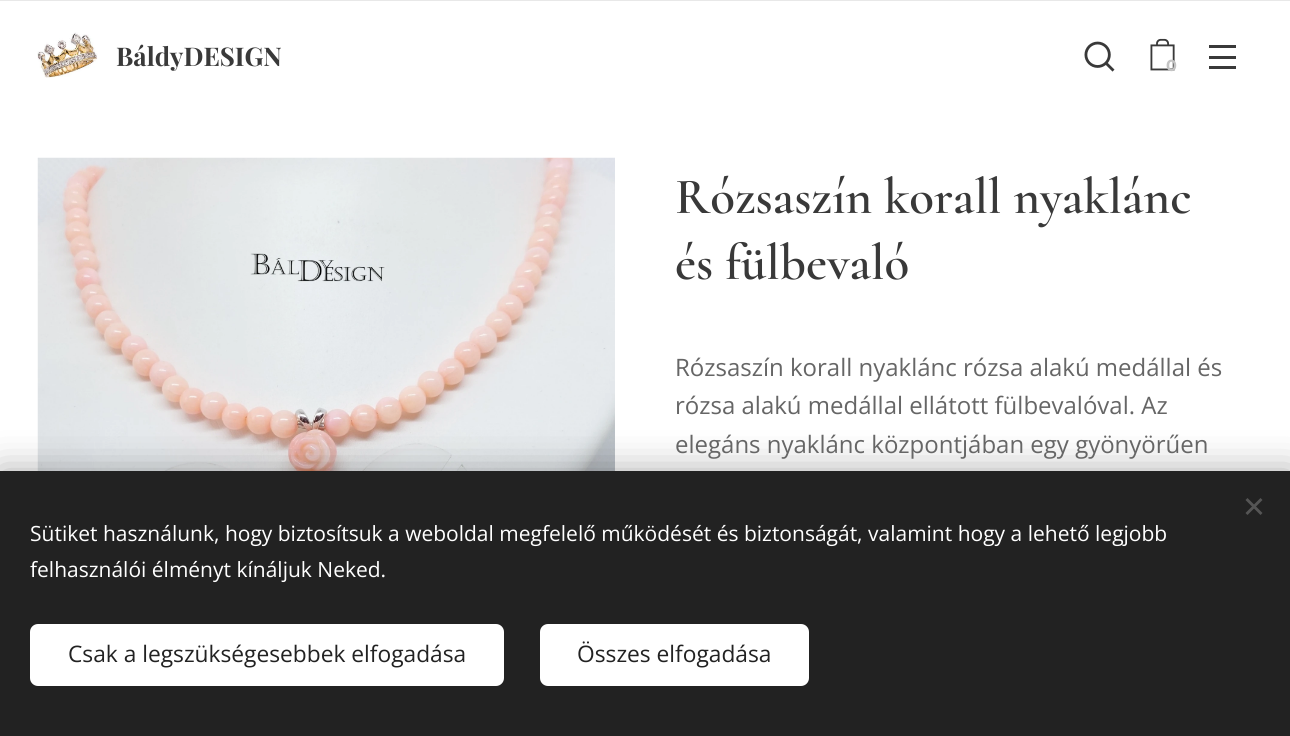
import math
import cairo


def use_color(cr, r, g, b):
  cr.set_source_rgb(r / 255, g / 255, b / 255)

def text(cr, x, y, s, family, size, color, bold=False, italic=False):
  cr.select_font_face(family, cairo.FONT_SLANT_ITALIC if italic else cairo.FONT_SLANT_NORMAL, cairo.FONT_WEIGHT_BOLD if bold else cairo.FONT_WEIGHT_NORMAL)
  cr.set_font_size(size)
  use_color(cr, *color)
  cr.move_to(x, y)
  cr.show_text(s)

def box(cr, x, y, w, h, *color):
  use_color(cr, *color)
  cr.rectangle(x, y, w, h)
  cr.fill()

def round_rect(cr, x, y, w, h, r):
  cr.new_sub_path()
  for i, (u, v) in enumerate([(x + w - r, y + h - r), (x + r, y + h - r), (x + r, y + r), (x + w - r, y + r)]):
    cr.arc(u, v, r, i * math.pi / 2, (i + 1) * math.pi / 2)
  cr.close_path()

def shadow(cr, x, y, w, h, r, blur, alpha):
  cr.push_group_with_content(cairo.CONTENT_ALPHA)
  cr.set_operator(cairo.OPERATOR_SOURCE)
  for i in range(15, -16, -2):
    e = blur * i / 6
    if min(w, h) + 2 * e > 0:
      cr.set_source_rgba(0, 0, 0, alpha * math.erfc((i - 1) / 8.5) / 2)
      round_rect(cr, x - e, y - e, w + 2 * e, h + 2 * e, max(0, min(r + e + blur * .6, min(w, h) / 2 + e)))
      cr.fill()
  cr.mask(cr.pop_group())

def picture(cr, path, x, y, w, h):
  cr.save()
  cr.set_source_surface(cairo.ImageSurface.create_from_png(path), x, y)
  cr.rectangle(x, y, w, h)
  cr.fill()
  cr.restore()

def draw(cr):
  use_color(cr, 255, 255, 255)
  cr.paint()
  picture(cr, "img_01.png", 37, 32, 61, 46)
  box(cr, 0, 0, 1290, 1, 232, 232, 232)
  picture(cr, "img_02.png", 1084, 41, 31, 31)
  picture(cr, "img_03.png", 1150, 38, 25, 33)
  box(cr, 1209, 56, 27, 3, 57, 57, 57)
  box(cr, 1209, 45, 27, 3, 57, 57, 57)
  box(cr, 1209, 66, 27, 3, 57, 57, 57)
  picture(cr, "img_04.png", 37, 157, 578, 314)
  use_color(cr, 0, 0, 0)
  shadow(cr, 0, 471, 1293, 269, 0, 19, 0.33)
  box(cr, 0, 471, 1290, 265, 34, 34, 34)
  use_color(cr, 85, 85, 85)
  cr.new_path()
  cr.move_to(1245.5, 513)
  cr.line_to(1260.5, 498)
  cr.line_to(1262.5, 500)
  cr.line_to(1247.5, 515)
  cr.close_path()
  cr.fill()
  cr.new_path()
  cr.move_to(1247.5, 498)
  cr.line_to(1262.5, 513)
  cr.line_to(1260.5, 515)
  cr.line_to(1245.5, 500)
  cr.close_path()
  cr.fill()
  use_color(cr, 255, 255, 255)
  round_rect(cr, 30, 624, 474, 62, 8)
  cr.fill()
  round_rect(cr, 540, 624, 269, 62, 8)
  cr.fill()
  text(cr, 116, 66, "BáldyDESIGN", "Playfair Display", 25.75, (57, 57, 57), bold=True)
  text(cr, 1166, 71, "0", "Montserrat", 16, (196, 196, 196), bold=True)
  text(cr, 675, 213, "Rózsaszín korall nyaklánc", "Cormorant SemiBold", 51, (57, 57, 57))
  text(cr, 675, 279, "és fülbevaló", "Cormorant SemiBold", 51, (57, 57, 57))
  text(cr, 675, 376, "Rózsaszín korall nyaklánc rózsa alakú medállal és", "Open Sans", 24, (102, 102, 102))
  text(cr, 675, 414, "rózsa alakú medállal ellátott fülbevalóval. Az", "Open Sans", 24, (102, 102, 102))
  text(cr, 675, 453, "elegáns nyaklánc központjában egy gyönyörűen", "Open Sans", 24, (102, 102, 102))
  text(cr, 30, 541, "Sütiket használunk, hogy biztosítsuk a weboldal megfelelő működését és biztonságát, valamint hogy a lehető legjobb", "Open Sans", 21, (255, 255, 255))
  text(cr, 30, 577, "felhasználói élményt kínáljuk Neked.", "Open Sans", 21, (255, 255, 255))
  text(cr, 68, 662, "Csak a legszükségesebbek elfogadása", "Open Sans", 22.75, (34, 34, 34))
  text(cr, 577, 662, "Összes elfogadása", "Open Sans", 22.75, (34, 34, 34))


surface = cairo.ImageSurface(cairo.FORMAT_RGB24, 1290, 736)
cr = cairo.Context(surface)
options = cairo.FontOptions()
options.set_hint_metrics(cairo.HINT_METRICS_OFF)
options.set_hint_style(cairo.HINT_STYLE_NONE)
cr.set_font_options(options)
cr.set_miter_limit(4)
draw(cr)
surface.write_to_png("out.png")
